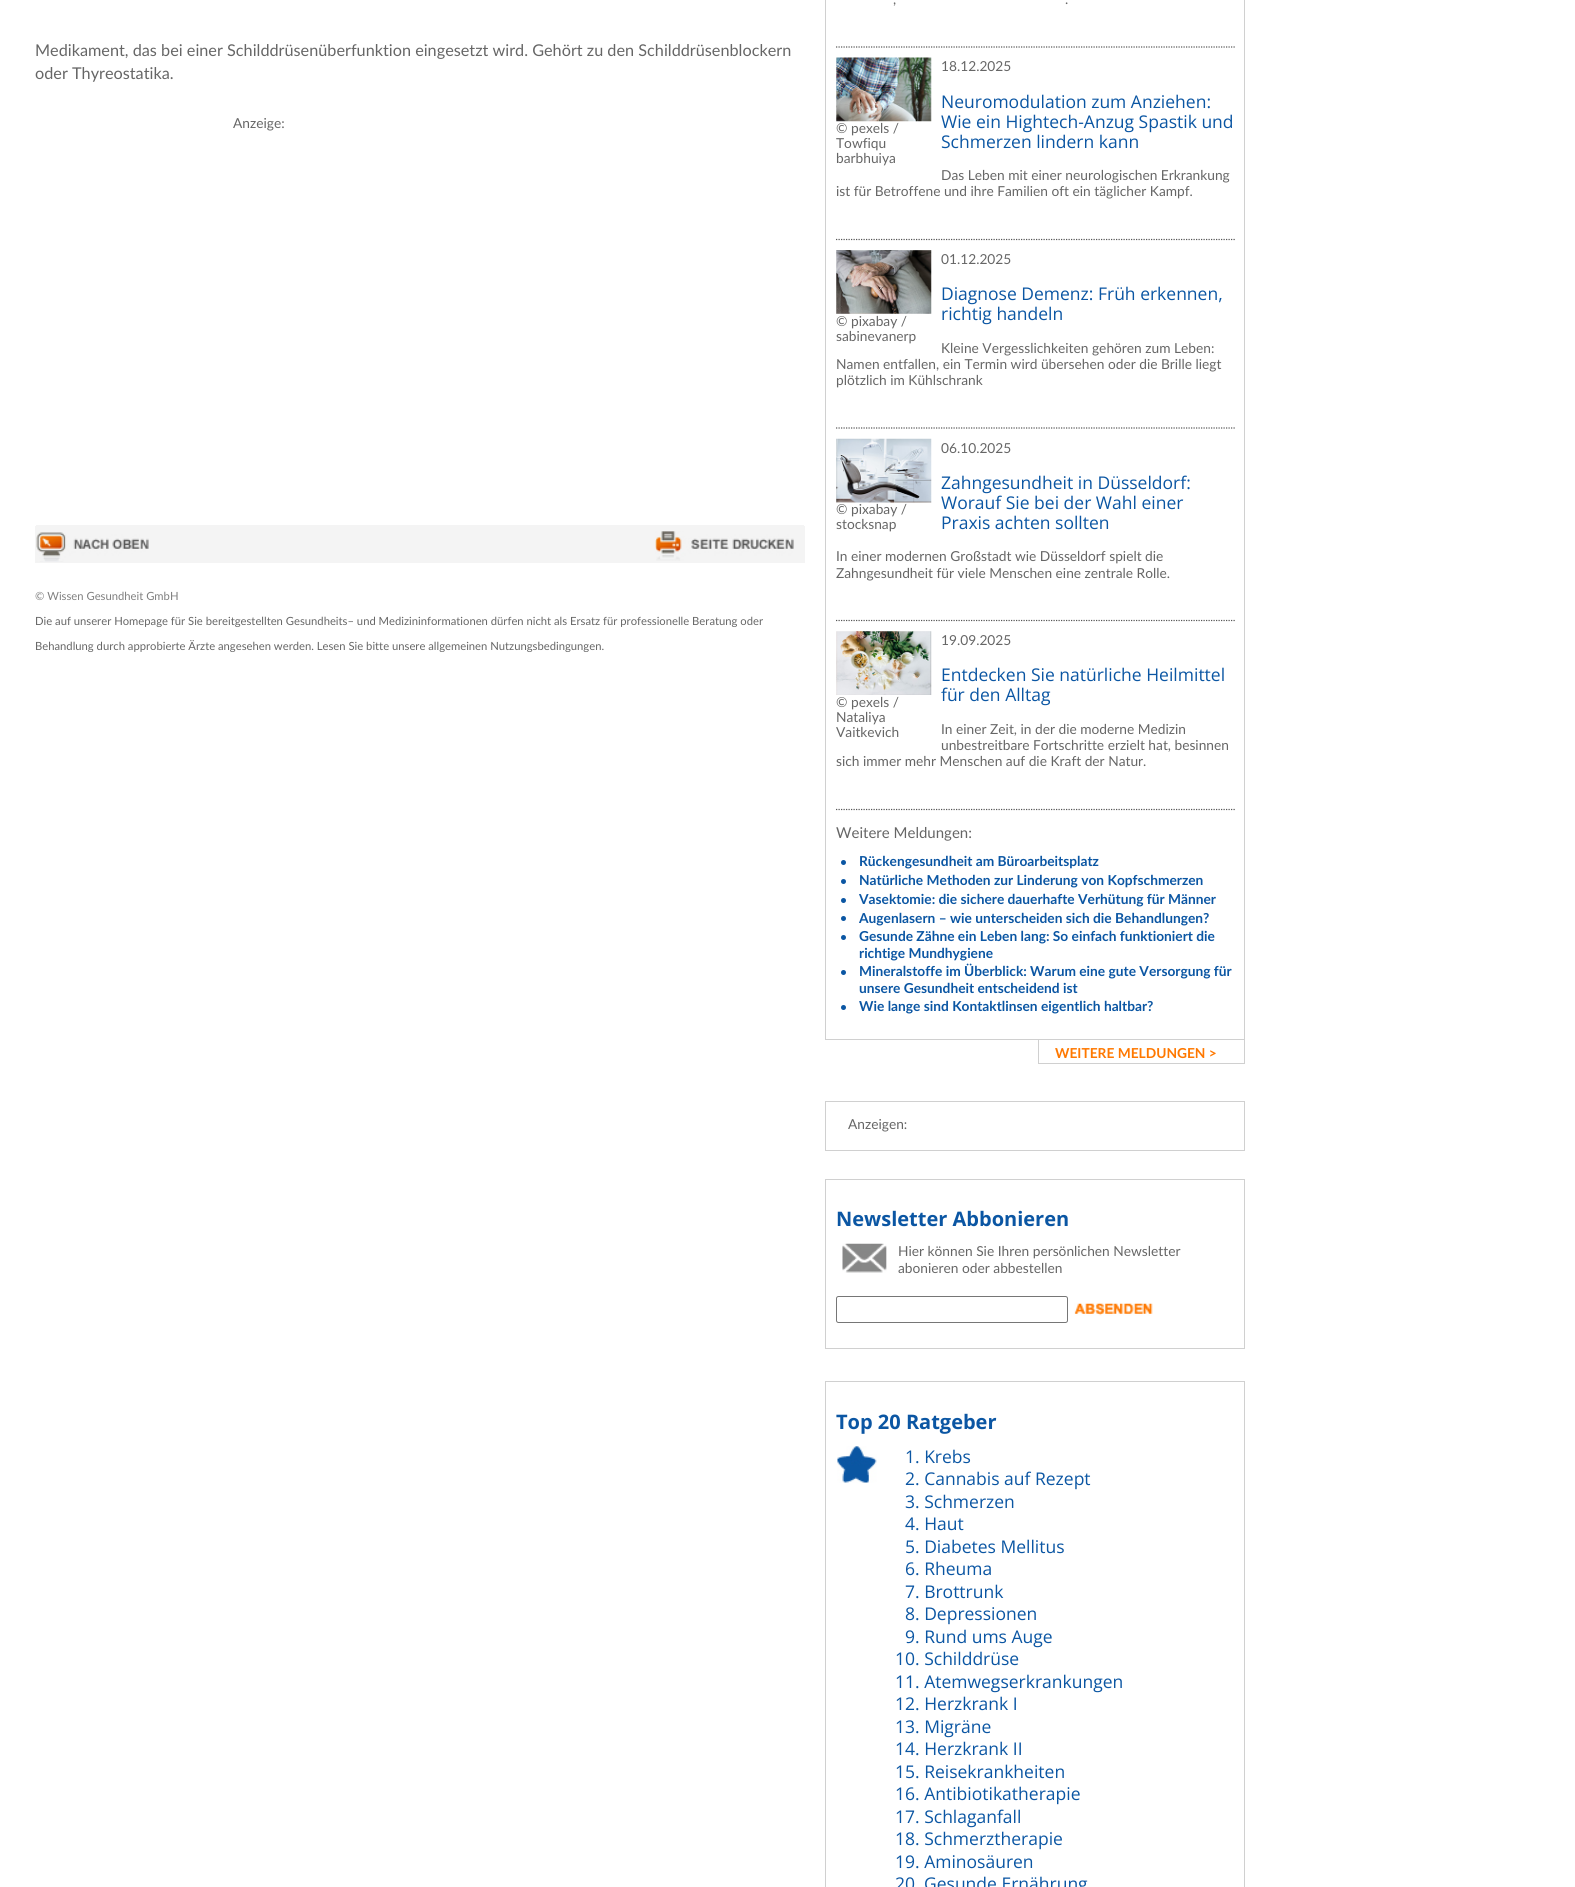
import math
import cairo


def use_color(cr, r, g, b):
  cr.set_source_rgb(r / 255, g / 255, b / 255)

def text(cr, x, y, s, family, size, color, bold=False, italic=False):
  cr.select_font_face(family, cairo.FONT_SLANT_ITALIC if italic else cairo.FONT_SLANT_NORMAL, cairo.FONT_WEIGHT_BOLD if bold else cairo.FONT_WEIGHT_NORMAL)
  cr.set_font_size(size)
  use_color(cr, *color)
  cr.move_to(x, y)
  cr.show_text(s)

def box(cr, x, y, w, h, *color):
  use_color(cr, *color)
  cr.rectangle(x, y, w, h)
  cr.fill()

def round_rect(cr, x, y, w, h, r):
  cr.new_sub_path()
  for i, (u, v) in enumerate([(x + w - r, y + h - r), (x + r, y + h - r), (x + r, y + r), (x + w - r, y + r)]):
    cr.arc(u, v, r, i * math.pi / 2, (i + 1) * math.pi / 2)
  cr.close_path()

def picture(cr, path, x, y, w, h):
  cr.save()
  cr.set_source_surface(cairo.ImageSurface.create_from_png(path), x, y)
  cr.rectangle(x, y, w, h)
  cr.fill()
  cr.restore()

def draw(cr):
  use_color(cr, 255, 255, 255)
  cr.paint()
  box(cr, 35, 525, 770, 38, 244, 244, 244)
  picture(cr, "img_01.png", 36, 532, 113, 30)
  picture(cr, "img_02.png", 655, 531, 139, 30)
  box(cr, 35, 525, 1, 1, 255, 255, 255)
  box(cr, 804, 525, 1, 1, 255, 255, 255)
  cr.rectangle(825.5, -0.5, 419, 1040)
  use_color(cr, 208, 208, 208)
  cr.set_line_width(1)
  cr.stroke()
  cr.new_path()
  cr.move_to(836, 47)
  cr.line_to(1236, 47)
  use_color(cr, 86, 86, 86)
  cr.set_line_width(1.2)
  cr.set_dash([1.25, 1.25])
  cr.stroke()
  cr.new_path()
  cr.move_to(836, 239.5)
  cr.line_to(1236, 239.5)
  cr.stroke()
  picture(cr, "img_03.png", 836, 57, 96, 65)
  cr.new_path()
  cr.move_to(836, 428)
  cr.line_to(1236, 428)
  cr.stroke()
  picture(cr, "img_04.png", 836, 250, 96, 64)
  cr.new_path()
  cr.move_to(836, 620.5)
  cr.line_to(1236, 620.5)
  cr.stroke()
  picture(cr, "img_05.png", 836, 438, 96, 65)
  cr.new_path()
  cr.move_to(836, 809.5)
  cr.line_to(1236, 809.5)
  cr.stroke()
  picture(cr, "img_06.png", 836, 631, 96, 64)
  use_color(cr, 11, 86, 163)
  cr.arc(843.5, 862.5, 2.5, 0, 2 * math.pi)
  cr.fill()
  cr.arc(843.5, 881.5, 2.5, 0, 2 * math.pi)
  cr.fill()
  cr.arc(843.5, 900.5, 2.5, 0, 2 * math.pi)
  cr.fill()
  cr.arc(843.5, 918.5, 2.5, 0, 2 * math.pi)
  cr.fill()
  cr.arc(843.5, 937.5, 2.5, 0, 2 * math.pi)
  cr.fill()
  cr.arc(843.5, 972.5, 2.5, 0, 2 * math.pi)
  cr.fill()
  cr.arc(843.5, 1007.5, 2.5, 0, 2 * math.pi)
  cr.fill()
  box(cr, 1244, 1040, 1, 24, 208, 208, 208)
  box(cr, 1038, 1063, 207, 1, 208, 208, 208)
  box(cr, 1038, 1040, 1, 24, 208, 208, 208)
  cr.rectangle(825.5, 1101.5, 419, 49)
  cr.set_line_width(1)
  cr.set_dash([])
  cr.stroke()
  cr.rectangle(825.5, 1179.5, 419, 169)
  cr.stroke()
  picture(cr, "img_07.png", 842, 1243, 45, 30)
  round_rect(cr, 836.5, 1296.5, 231, 26, 2)
  use_color(cr, 118, 118, 118)
  cr.stroke()
  picture(cr, "img_08.png", 1074, 1302, 79, 14)
  cr.rectangle(825.5, 1381.5, 419, 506)
  use_color(cr, 208, 208, 208)
  cr.stroke()
  picture(cr, "img_09.png", 837, 1446, 40, 37)
  text(cr, 35, 56, "Medikament, das bei einer Schilddrüsenüberfunktion eingesetzt wird. Gehört zu den Schilddrüsenblockern", "Lato", 16.25, (102, 102, 102))
  text(cr, 35, 79, "oder Thyreostatika.", "Lato", 16.25, (102, 102, 102))
  text(cr, 233, 128, "Anzeige:", "Lato", 13.75, (102, 102, 102))
  text(cr, 35, 600, "© Wissen Gesundheit GmbH", "Lato", 11.25, (127, 127, 127))
  text(cr, 35, 625, "Die auf unserer Homepage für Sie bereitgestellten Gesundheits– und Medizininformationen dürfen nicht als Ersatz für professionelle Beratung oder", "Lato", 11.25, (102, 102, 102))
  text(cr, 35, 650, "Behandlung durch approbierte Ärzte angesehen werden. Lesen Sie bitte unsere allgemeinen Nutzungsbedingungen.", "Lato", 11.25, (102, 102, 102))
  text(cr, 893, 4, ",", "Lato", 13.75, (102, 102, 102))
  text(cr, 1065, 4, ".", "Lato", 13.75, (102, 102, 102))
  text(cr, 941, 71, "18.12.2025", "Lato", 13.75, (102, 102, 102))
  text(cr, 836, 133, "© pexels /", "Lato", 13.75, (102, 102, 102))
  text(cr, 836, 148, "Towfiqu", "Lato", 13.75, (102, 102, 102))
  text(cr, 836, 163, "barbhuiya", "Lato", 13.75, (102, 102, 102))
  text(cr, 941, 108, "Neuromodulation zum Anziehen:", "Open Sans", 17.5, (11, 86, 163))
  text(cr, 941, 128, "Wie ein Hightech-Anzug Spastik und", "Open Sans", 17.5, (11, 86, 163))
  text(cr, 941, 148, "Schmerzen lindern kann", "Open Sans", 17.5, (11, 86, 163))
  text(cr, 941, 180, "Das Leben mit einer neurologischen Erkrankung", "Lato", 13.75, (102, 102, 102))
  text(cr, 836, 196, "ist für Betroffene und ihre Familien oft ein täglicher Kampf.", "Lato", 13.75, (102, 102, 102))
  text(cr, 941, 264, "01.12.2025", "Lato", 13.75, (102, 102, 102))
  text(cr, 941, 300, "Diagnose Demenz: Früh erkennen,", "Open Sans", 17.5, (11, 86, 163))
  text(cr, 941, 320, "richtig handeln", "Open Sans", 17.5, (11, 86, 163))
  text(cr, 836, 326, "© pixabay /", "Lato", 13.75, (102, 102, 102))
  text(cr, 836, 341, "sabinevanerp", "Lato", 13.75, (102, 102, 102))
  text(cr, 941, 353, "Kleine Vergesslichkeiten gehören zum Leben:", "Lato", 13.75, (102, 102, 102))
  text(cr, 836, 369, "Namen entfallen, ein Termin wird übersehen oder die Brille liegt", "Lato", 13.75, (102, 102, 102))
  text(cr, 836, 385, "plötzlich im Kühlschrank", "Lato", 13.75, (102, 102, 102))
  text(cr, 941, 453, "06.10.2025", "Lato", 13.75, (102, 102, 102))
  text(cr, 836, 514, "© pixabay /", "Lato", 13.75, (102, 102, 102))
  text(cr, 836, 529, "stocksnap", "Lato", 13.75, (102, 102, 102))
  text(cr, 941, 489, "Zahngesundheit in Düsseldorf:", "Open Sans", 17.5, (11, 86, 163))
  text(cr, 941, 509, "Worauf Sie bei der Wahl einer", "Open Sans", 17.5, (11, 86, 163))
  text(cr, 941, 529, "Praxis achten sollten", "Open Sans", 17.5, (11, 86, 163))
  text(cr, 836, 561, "In einer modernen Großstadt wie Düsseldorf spielt die", "Lato", 13.75, (102, 102, 102))
  text(cr, 836, 578, "Zahngesundheit für viele Menschen eine zentrale Rolle.", "Lato", 13.75, (102, 102, 102))
  text(cr, 941, 645, "19.09.2025", "Lato", 13.75, (102, 102, 102))
  text(cr, 941, 681, "Entdecken Sie natürliche Heilmittel", "Open Sans", 17.5, (11, 86, 163))
  text(cr, 941, 701, "für den Alltag", "Open Sans", 17.5, (11, 86, 163))
  text(cr, 836, 707, "© pexels /", "Lato", 13.75, (102, 102, 102))
  text(cr, 836, 722, "Nataliya", "Lato", 13.75, (102, 102, 102))
  text(cr, 836, 737, "Vaitkevich", "Lato", 13.75, (102, 102, 102))
  text(cr, 941, 734, "In einer Zeit, in der die moderne Medizin", "Lato", 13.75, (102, 102, 102))
  text(cr, 941, 750, "unbestreitbare Fortschritte erzielt hat, besinnen", "Lato", 13.75, (102, 102, 102))
  text(cr, 836, 766, "sich immer mehr Menschen auf die Kraft der Natur.", "Lato", 13.75, (102, 102, 102))
  text(cr, 836, 838, "Weitere Meldungen:", "Lato", 15, (102, 102, 102))
  text(cr, 859, 866, "Rückengesundheit am Büroarbeitsplatz", "Lato", 13.75, (11, 86, 163), bold=True)
  text(cr, 859, 885, "Natürliche Methoden zur Linderung von Kopfschmerzen", "Lato", 13.75, (11, 86, 163), bold=True)
  text(cr, 859, 904, "Vasektomie: die sichere dauerhafte Verhütung für Männer", "Lato", 13.75, (11, 86, 163), bold=True)
  text(cr, 859, 923, "Augenlasern – wie unterscheiden sich die Behandlungen?", "Lato", 13.75, (11, 86, 163), bold=True)
  text(cr, 859, 941, "Gesunde Zähne ein Leben lang: So einfach funktioniert die", "Lato", 13.75, (11, 86, 163), bold=True)
  text(cr, 859, 958, "richtige Mundhygiene", "Lato", 13.75, (11, 86, 163), bold=True)
  text(cr, 859, 976, "Mineralstoffe im Überblick: Warum eine gute Versorgung für", "Lato", 13.75, (11, 86, 163), bold=True)
  text(cr, 859, 993, "unsere Gesundheit entscheidend ist", "Lato", 13.75, (11, 86, 163), bold=True)
  text(cr, 859, 1011, "Wie lange sind Kontaktlinsen eigentlich haltbar?", "Lato", 13.75, (11, 86, 163), bold=True)
  text(cr, 1055, 1058, "WEITERE MELDUNGEN >", "Lato", 13.75, (255, 120, 0), bold=True)
  text(cr, 848, 1129, "Anzeigen:", "Lato", 13.75, (102, 102, 102))
  text(cr, 836, 1226, "Newsletter Abbonieren", "Open Sans", 20, (11, 86, 163), bold=True)
  text(cr, 898, 1256, "Hier können Sie Ihren persönlichen Newsletter", "Lato", 13.75, (102, 102, 102))
  text(cr, 898, 1273, "abonieren oder abbestellen", "Lato", 13.75, (102, 102, 102))
  text(cr, 836, 1429, "Top 20 Ratgeber", "Open Sans", 20, (11, 86, 163), bold=True)
  text(cr, 905, 1463, "1. Krebs", "Open Sans", 17.5, (11, 86, 163))
  text(cr, 905, 1485, "2. Cannabis auf Rezept", "Open Sans", 17.5, (11, 86, 163))
  text(cr, 905, 1508, "3. Schmerzen", "Open Sans", 17.5, (11, 86, 163))
  text(cr, 905, 1530, "4. Haut", "Open Sans", 17.5, (11, 86, 163))
  text(cr, 905, 1553, "5. Diabetes Mellitus", "Open Sans", 17.5, (11, 86, 163))
  text(cr, 905, 1575, "6. Rheuma", "Open Sans", 17.5, (11, 86, 163))
  text(cr, 905, 1598, "7. Brottrunk", "Open Sans", 17.5, (11, 86, 163))
  text(cr, 905, 1620, "8. Depressionen", "Open Sans", 17.5, (11, 86, 163))
  text(cr, 905, 1643, "9. Rund ums Auge", "Open Sans", 17.5, (11, 86, 163))
  text(cr, 895, 1665, "10. Schilddrüse", "Open Sans", 17.5, (11, 86, 163))
  text(cr, 895, 1688, "11. Atemwegserkrankungen", "Open Sans", 17.5, (11, 86, 163))
  text(cr, 895, 1710, "12. Herzkrank I", "Open Sans", 17.5, (11, 86, 163))
  text(cr, 895, 1733, "13. Migräne", "Open Sans", 17.5, (11, 86, 163))
  text(cr, 895, 1755, "14. Herzkrank II", "Open Sans", 17.5, (11, 86, 163))
  text(cr, 895, 1778, "15. Reisekrankheiten", "Open Sans", 17.5, (11, 86, 163))
  text(cr, 895, 1800, "16. Antibiotikatherapie", "Open Sans", 17.5, (11, 86, 163))
  text(cr, 895, 1823, "17. Schlaganfall", "Open Sans", 17.5, (11, 86, 163))
  text(cr, 895, 1845, "18. Schmerztherapie", "Open Sans", 17.5, (11, 86, 163))
  text(cr, 895, 1868, "19. Aminosäuren", "Open Sans", 17.5, (11, 86, 163))
  text(cr, 895, 1890, "20", "Open Sans", 17.5, (11, 86, 163))
  text(cr, 924, 1890, "Gesunde Ernährung", "Open Sans", 17.5, (11, 86, 163))


surface = cairo.ImageSurface(cairo.FORMAT_RGB24, 1575, 1887)
cr = cairo.Context(surface)
options = cairo.FontOptions()
options.set_hint_metrics(cairo.HINT_METRICS_OFF)
options.set_hint_style(cairo.HINT_STYLE_NONE)
cr.set_font_options(options)
cr.set_miter_limit(4)
draw(cr)
surface.write_to_png("out.png")
